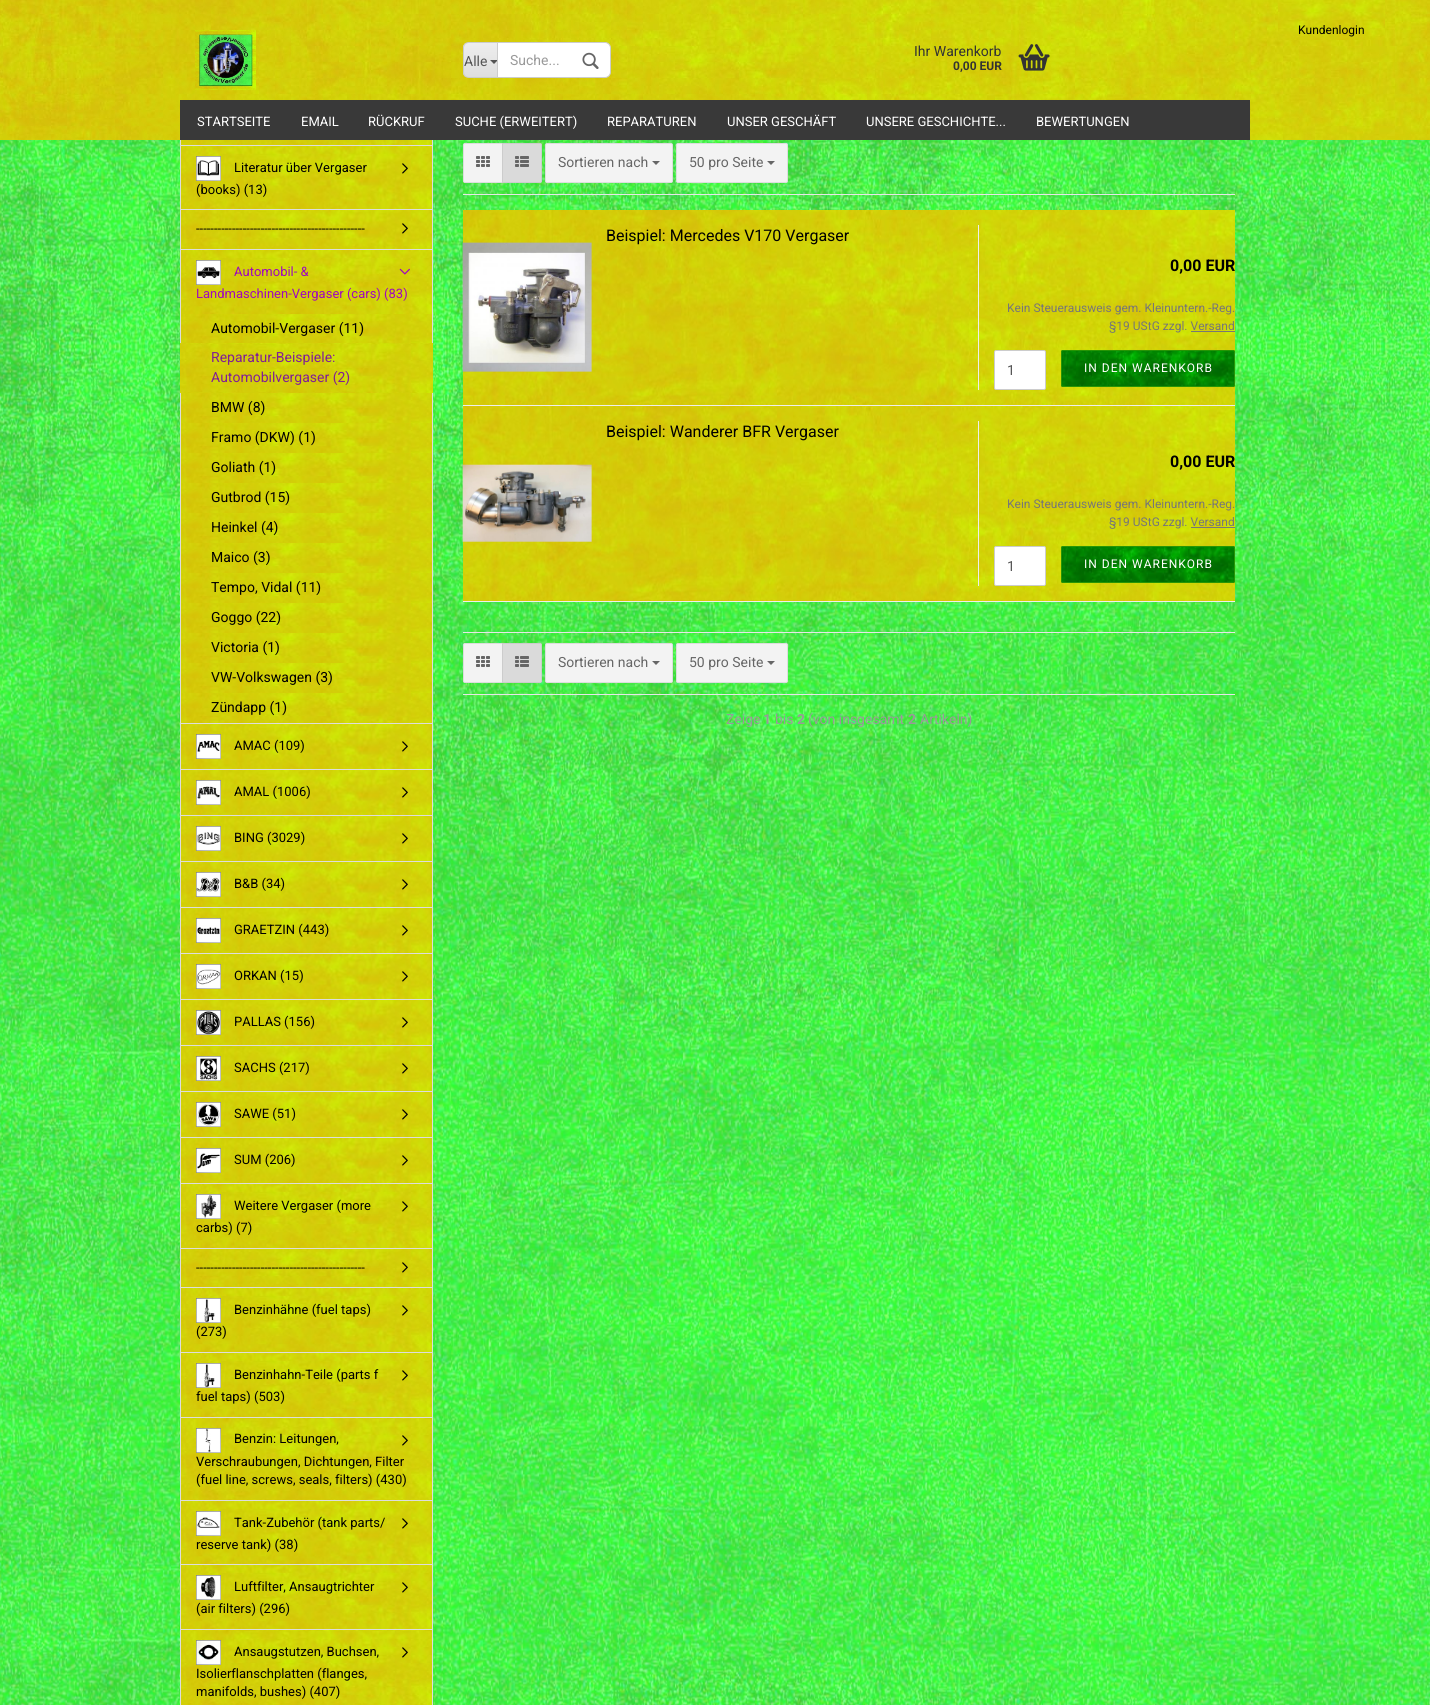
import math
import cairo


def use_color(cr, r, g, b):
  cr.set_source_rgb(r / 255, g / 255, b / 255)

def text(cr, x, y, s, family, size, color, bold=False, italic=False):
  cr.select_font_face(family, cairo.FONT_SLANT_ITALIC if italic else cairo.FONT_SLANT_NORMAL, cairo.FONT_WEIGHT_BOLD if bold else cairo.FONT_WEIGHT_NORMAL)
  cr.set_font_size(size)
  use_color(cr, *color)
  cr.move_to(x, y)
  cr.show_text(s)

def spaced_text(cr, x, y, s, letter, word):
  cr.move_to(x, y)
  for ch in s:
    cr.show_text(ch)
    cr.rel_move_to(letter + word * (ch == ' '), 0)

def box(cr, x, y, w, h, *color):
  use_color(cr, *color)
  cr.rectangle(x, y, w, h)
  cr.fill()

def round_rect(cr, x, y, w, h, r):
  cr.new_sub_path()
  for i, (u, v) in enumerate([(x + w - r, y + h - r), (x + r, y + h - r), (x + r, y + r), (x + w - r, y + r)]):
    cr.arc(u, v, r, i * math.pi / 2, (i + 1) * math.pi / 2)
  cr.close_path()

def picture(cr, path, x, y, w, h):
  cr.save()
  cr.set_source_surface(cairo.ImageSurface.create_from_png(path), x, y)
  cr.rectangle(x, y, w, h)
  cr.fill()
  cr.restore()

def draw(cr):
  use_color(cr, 255, 255, 255)
  cr.paint()
  picture(cr, "img_01.png", 0, 140, 1430, 1565)
  picture(cr, "img_02.png", 0, 0, 1430, 140)
  picture(cr, "img_03.png", 1278, 0, 107, 40)
  picture(cr, "img_04.png", 195, 30, 61, 60)
  cr.save()
  cr.new_path()
  cr.move_to(469, 42)
  cr.line_to(497, 42)
  cr.line_to(497, 78)
  cr.line_to(469, 78)
  cr.curve_to(465.5, 78, 463, 75.5, 463, 72)
  cr.line_to(463, 48)
  cr.curve_to(463, 44.5, 465.5, 42, 469, 42)
  cr.close_path()
  cr.clip()
  gradient = cairo.LinearGradient(481, 43, 481, 77)
  gradient.add_color_stop_rgba(0, 0.933, 0.933, 0.933, 1)
  gradient.add_color_stop_rgba(1, 0.871, 0.871, 0.871, 1)
  cr.set_source(gradient)
  cr.rectangle(463, 43, 34, 34)
  cr.fill()
  cr.restore()
  use_color(cr, 204, 204, 204)
  cr.set_fill_rule(cairo.FILL_RULE_EVEN_ODD)
  cr.new_path()
  cr.move_to(469, 42)
  cr.line_to(497, 42)
  cr.line_to(497, 78)
  cr.line_to(469, 78)
  cr.curve_to(465.5, 78, 463, 75.5, 463, 72)
  cr.line_to(463, 48)
  cr.curve_to(463, 44.5, 465.5, 42, 469, 42)
  cr.close_path()
  cr.move_to(469, 43)
  cr.line_to(497, 43)
  cr.line_to(497, 77)
  cr.line_to(469, 77)
  cr.curve_to(466, 77, 464, 75, 464, 72)
  cr.line_to(464, 48)
  cr.curve_to(464, 45, 466, 43, 469, 43)
  cr.close_path()
  cr.fill()
  use_color(cr, 85, 85, 85)
  cr.set_fill_rule(cairo.FILL_RULE_WINDING)
  cr.new_path()
  cr.move_to(490, 60)
  cr.line_to(498, 60)
  cr.line_to(494, 64)
  cr.close_path()
  cr.fill()
  use_color(cr, 255, 255, 255)
  cr.new_path()
  cr.move_to(497.5, 42.5)
  cr.line_to(605, 42.5)
  cr.curve_to(608, 42.5, 610.5, 45, 610.5, 48)
  cr.line_to(610.5, 72)
  cr.curve_to(610.5, 75, 608, 77.5, 605, 77.5)
  cr.line_to(497.5, 77.5)
  cr.close_path()
  cr.fill_preserve()
  use_color(cr, 204, 204, 204)
  cr.set_line_width(1)
  cr.stroke()
  picture(cr, "img_05.png", 582, 52, 17, 17)
  picture(cr, "img_06.png", 1018, 44, 32, 27)
  box(cr, 180, 100, 1070, 40, 57, 57, 57)
  box(cr, 432, 140, 1, 1565, 221, 221, 221)
  box(cr, 180, 140, 1, 1565, 221, 221, 221)
  box(cr, 181, 145, 251, 1, 221, 221, 221)
  picture(cr, "img_07.png", 181, 140, 251, 5)
  box(cr, 181, 209, 251, 1, 221, 221, 221)
  picture(cr, "img_08.png", 181, 146, 251, 63)
  picture(cr, "img_09.png", 196, 156, 25, 25)
  picture(cr, "img_10.png", 402, 163, 6, 11)
  box(cr, 181, 249, 251, 1, 221, 221, 221)
  picture(cr, "img_11.png", 181, 210, 251, 39)
  picture(cr, "img_12.png", 402, 223, 6, 11)
  box(cr, 181, 723, 251, 1, 221, 221, 221)
  picture(cr, "img_13.png", 181, 250, 251, 64)
  picture(cr, "img_14.png", 196, 260, 25, 25)
  picture(cr, "img_15.png", 399, 268, 11, 7)
  picture(cr, "img_16.png", 181, 314, 251, 29)
  picture(cr, "img_17.png", 180, 343, 253, 50)
  picture(cr, "img_18.png", 181, 393, 251, 30)
  picture(cr, "img_18.png", 181, 423, 251, 30)
  picture(cr, "img_18.png", 181, 453, 251, 30)
  picture(cr, "img_18.png", 181, 483, 251, 30)
  picture(cr, "img_18.png", 181, 513, 251, 30)
  picture(cr, "img_18.png", 181, 543, 251, 30)
  picture(cr, "img_18.png", 181, 573, 251, 30)
  picture(cr, "img_18.png", 181, 603, 251, 30)
  picture(cr, "img_18.png", 181, 633, 251, 30)
  picture(cr, "img_18.png", 181, 663, 251, 30)
  picture(cr, "img_18.png", 181, 693, 251, 30)
  box(cr, 181, 769, 251, 1, 221, 221, 221)
  picture(cr, "img_19.png", 181, 724, 251, 45)
  picture(cr, "img_20.png", 196, 734, 25, 25)
  picture(cr, "img_21.png", 402, 741, 6, 11)
  box(cr, 181, 815, 251, 1, 221, 221, 221)
  picture(cr, "img_19.png", 181, 770, 251, 45)
  picture(cr, "img_22.png", 196, 780, 25, 25)
  picture(cr, "img_21.png", 402, 787, 6, 11)
  box(cr, 181, 861, 251, 1, 221, 221, 221)
  picture(cr, "img_19.png", 181, 816, 251, 45)
  picture(cr, "img_23.png", 196, 826, 25, 25)
  picture(cr, "img_21.png", 402, 833, 6, 11)
  box(cr, 181, 907, 251, 1, 221, 221, 221)
  picture(cr, "img_19.png", 181, 862, 251, 45)
  picture(cr, "img_24.png", 196, 872, 25, 25)
  picture(cr, "img_21.png", 402, 879, 6, 11)
  box(cr, 181, 953, 251, 1, 221, 221, 221)
  picture(cr, "img_19.png", 181, 908, 251, 45)
  picture(cr, "img_25.png", 196, 918, 25, 25)
  picture(cr, "img_21.png", 402, 925, 6, 11)
  box(cr, 181, 999, 251, 1, 221, 221, 221)
  picture(cr, "img_19.png", 181, 954, 251, 45)
  picture(cr, "img_26.png", 196, 964, 25, 25)
  picture(cr, "img_21.png", 402, 971, 6, 11)
  box(cr, 181, 1045, 251, 1, 221, 221, 221)
  picture(cr, "img_19.png", 181, 1000, 251, 45)
  picture(cr, "img_27.png", 196, 1010, 25, 25)
  picture(cr, "img_21.png", 402, 1017, 6, 11)
  box(cr, 181, 1091, 251, 1, 221, 221, 221)
  picture(cr, "img_19.png", 181, 1046, 251, 45)
  picture(cr, "img_28.png", 196, 1056, 25, 25)
  picture(cr, "img_21.png", 402, 1063, 6, 11)
  box(cr, 181, 1137, 251, 1, 221, 221, 221)
  picture(cr, "img_19.png", 181, 1092, 251, 45)
  picture(cr, "img_29.png", 196, 1102, 25, 25)
  picture(cr, "img_21.png", 402, 1109, 6, 11)
  box(cr, 181, 1183, 251, 1, 221, 221, 221)
  picture(cr, "img_19.png", 181, 1138, 251, 45)
  picture(cr, "img_30.png", 196, 1148, 25, 25)
  picture(cr, "img_21.png", 402, 1155, 6, 11)
  box(cr, 181, 1248, 251, 1, 221, 221, 221)
  picture(cr, "img_13.png", 181, 1184, 251, 64)
  picture(cr, "img_31.png", 196, 1194, 25, 25)
  picture(cr, "img_32.png", 402, 1201, 6, 11)
  box(cr, 181, 1287, 251, 1, 221, 221, 221)
  picture(cr, "img_33.png", 181, 1249, 251, 38)
  picture(cr, "img_34.png", 402, 1262, 6, 11)
  box(cr, 181, 1352, 251, 1, 221, 221, 221)
  picture(cr, "img_13.png", 181, 1288, 251, 64)
  picture(cr, "img_35.png", 196, 1298, 25, 25)
  picture(cr, "img_32.png", 402, 1305, 6, 11)
  box(cr, 181, 1417, 251, 1, 221, 221, 221)
  picture(cr, "img_13.png", 181, 1353, 251, 64)
  picture(cr, "img_35.png", 196, 1363, 25, 25)
  picture(cr, "img_32.png", 402, 1370, 6, 11)
  box(cr, 181, 1500, 251, 1, 221, 221, 221)
  picture(cr, "img_36.png", 181, 1418, 251, 82)
  picture(cr, "img_37.png", 196, 1428, 25, 25)
  picture(cr, "img_38.png", 402, 1435, 6, 11)
  box(cr, 181, 1564, 251, 1, 221, 221, 221)
  picture(cr, "img_08.png", 181, 1501, 251, 63)
  picture(cr, "img_39.png", 196, 1511, 25, 25)
  picture(cr, "img_10.png", 402, 1518, 6, 11)
  box(cr, 181, 1629, 251, 1, 221, 221, 221)
  picture(cr, "img_13.png", 181, 1565, 251, 64)
  picture(cr, "img_40.png", 196, 1575, 25, 25)
  picture(cr, "img_32.png", 402, 1582, 6, 11)
  picture(cr, "img_41.png", 181, 1630, 251, 75)
  picture(cr, "img_42.png", 196, 1640, 25, 25)
  picture(cr, "img_38.png", 402, 1647, 6, 11)
  box(cr, 463, 194, 772, 1, 231, 231, 231)
  use_color(cr, 243, 243, 243)
  cr.new_path()
  cr.move_to(465, 143.5)
  cr.line_to(502.5, 143.5)
  cr.line_to(502.5, 182.5)
  cr.line_to(465, 182.5)
  cr.curve_to(464, 182.5, 463.5, 182, 463.5, 181)
  cr.line_to(463.5, 145)
  cr.curve_to(463.5, 144, 464, 143.5, 465, 143.5)
  cr.close_path()
  cr.fill_preserve()
  use_color(cr, 221, 221, 221)
  cr.stroke()
  picture(cr, "img_43.png", 476, 156, 14, 11)
  use_color(cr, 218, 218, 218)
  cr.new_path()
  cr.move_to(502.5, 143.5)
  cr.line_to(540, 143.5)
  cr.curve_to(541, 143.5, 541.5, 144, 541.5, 145)
  cr.line_to(541.5, 181)
  cr.curve_to(541.5, 182, 541, 182.5, 540, 182.5)
  cr.line_to(502.5, 182.5)
  cr.close_path()
  cr.fill_preserve()
  use_color(cr, 204, 204, 204)
  cr.stroke()
  picture(cr, "img_44.png", 515, 156, 14, 11)
  use_color(cr, 243, 243, 243)
  round_rect(cr, 545.5, 143.5, 127, 39, 1.5)
  cr.fill_preserve()
  use_color(cr, 221, 221, 221)
  cr.stroke()
  use_color(cr, 102, 102, 102)
  cr.new_path()
  cr.move_to(652, 161)
  cr.line_to(660, 161)
  cr.line_to(656, 165)
  cr.close_path()
  cr.fill()
  use_color(cr, 243, 243, 243)
  round_rect(cr, 676.5, 143.5, 111, 39, 1.5)
  cr.fill_preserve()
  use_color(cr, 221, 221, 221)
  cr.stroke()
  use_color(cr, 102, 102, 102)
  cr.new_path()
  cr.move_to(767, 161)
  cr.line_to(775, 161)
  cr.line_to(771, 165)
  cr.close_path()
  cr.fill()
  picture(cr, "img_45.png", 463, 210, 772, 195)
  box(cr, 463, 405, 772, 1, 238, 238, 238)
  picture(cr, "img_46.png", 462, 242, 130, 130)
  box(cr, 978, 225, 1, 165, 238, 238, 238)
  box(cr, 1191, 331, 44, 1, 119, 119, 119)
  use_color(cr, 255, 255, 255)
  round_rect(cr, 994.5, 350.5, 51, 39, 1.5)
  cr.fill_preserve()
  use_color(cr, 204, 204, 204)
  cr.stroke()
  picture(cr, "img_47.png", 1061, 350, 174, 37)
  round_rect(cr, 1061.5, 350.5, 173, 36, 1.5)
  use_color(cr, 39, 149, 5)
  cr.stroke()
  picture(cr, "img_45.png", 463, 406, 772, 195)
  box(cr, 463, 601, 772, 1, 238, 238, 238)
  picture(cr, "img_48.png", 462, 464, 130, 78)
  box(cr, 978, 421, 1, 165, 238, 238, 238)
  box(cr, 1191, 527, 44, 1, 119, 119, 119)
  use_color(cr, 255, 255, 255)
  round_rect(cr, 994.5, 546.5, 51, 39, 1.5)
  cr.fill_preserve()
  use_color(cr, 204, 204, 204)
  cr.stroke()
  picture(cr, "img_47.png", 1061, 546, 174, 37)
  round_rect(cr, 1061.5, 546.5, 173, 36, 1.5)
  use_color(cr, 39, 149, 5)
  cr.stroke()
  box(cr, 463, 632, 772, 1, 231, 231, 231)
  box(cr, 463, 694, 772, 1, 231, 231, 231)
  use_color(cr, 243, 243, 243)
  cr.new_path()
  cr.move_to(465, 643.5)
  cr.line_to(502.5, 643.5)
  cr.line_to(502.5, 682.5)
  cr.line_to(465, 682.5)
  cr.curve_to(464, 682.5, 463.5, 682, 463.5, 681)
  cr.line_to(463.5, 645)
  cr.curve_to(463.5, 644, 464, 643.5, 465, 643.5)
  cr.close_path()
  cr.fill_preserve()
  use_color(cr, 221, 221, 221)
  cr.stroke()
  picture(cr, "img_43.png", 476, 656, 14, 11)
  use_color(cr, 218, 218, 218)
  cr.new_path()
  cr.move_to(502.5, 643.5)
  cr.line_to(540, 643.5)
  cr.curve_to(541, 643.5, 541.5, 644, 541.5, 645)
  cr.line_to(541.5, 681)
  cr.curve_to(541.5, 682, 541, 682.5, 540, 682.5)
  cr.line_to(502.5, 682.5)
  cr.close_path()
  cr.fill_preserve()
  use_color(cr, 204, 204, 204)
  cr.stroke()
  picture(cr, "img_44.png", 515, 656, 14, 11)
  use_color(cr, 243, 243, 243)
  round_rect(cr, 545.5, 643.5, 127, 39, 1.5)
  cr.fill_preserve()
  use_color(cr, 221, 221, 221)
  cr.stroke()
  use_color(cr, 102, 102, 102)
  cr.new_path()
  cr.move_to(652, 661)
  cr.line_to(660, 661)
  cr.line_to(656, 665)
  cr.close_path()
  cr.fill()
  use_color(cr, 243, 243, 243)
  round_rect(cr, 676.5, 643.5, 111, 39, 1.5)
  cr.fill_preserve()
  use_color(cr, 221, 221, 221)
  cr.stroke()
  use_color(cr, 102, 102, 102)
  cr.new_path()
  cr.move_to(767, 661)
  cr.line_to(775, 661)
  cr.line_to(771, 665)
  cr.close_path()
  cr.fill()
  text(cr, 1298, 34, "Kundenlogin", "Roboto", 12, (0, 0, 0))
  text(cr, 464, 66, "Alle", "Roboto", 14, (85, 85, 85))
  text(cr, 510, 65, "Suche...", "Roboto", 14, (153, 153, 153))
  text(cr, 914, 56, "Ihr Warenkorb", "Roboto", 14, (51, 51, 51))
  text(cr, 953, 70, "0,00 EUR", "Roboto", 12, (51, 51, 51), bold=True)
  text(cr, 197, 126, "STARTSEITE", "Roboto", 13, (255, 255, 255))
  text(cr, 301, 126, "EMAIL", "Roboto", 13, (255, 255, 255))
  text(cr, 368, 126, "RÜCKRUF", "Roboto", 13, (255, 255, 255))
  text(cr, 455, 126, "SUCHE (ERWEITERT)", "Roboto", 13, (255, 255, 255))
  text(cr, 607, 126, "REPARATUREN", "Roboto", 13, (255, 255, 255))
  text(cr, 727, 126, "UNSER GESCHÄFT", "Roboto", 13, (255, 255, 255))
  text(cr, 866, 126, "UNSERE GESCHICHTE...", "Roboto", 13, (255, 255, 255))
  text(cr, 1036, 126, "BEWERTUNGEN", "Roboto", 13, (255, 255, 255))
  text(cr, 234, 172, "Literatur über Vergaser", "Roboto", 13, (0, 0, 0))
  text(cr, 196, 194, "(books) (13)", "Roboto", 13, (0, 0, 0))
  text(cr, 196, 233, "-----------------------------------------------", "Roboto", 13, (0, 0, 0))
  text(cr, 234, 276, "Automobil- &", "Roboto", 13, (159, 9, 189))
  text(cr, 196, 298, "Landmaschinen-Vergaser (cars) (83)", "Roboto", 13, (159, 9, 189))
  text(cr, 211, 333, "Automobil-Vergaser (11)", "Roboto", 14, (0, 0, 0))
  text(cr, 211, 362, "Reparatur-Beispiele:", "Roboto", 14, (129, 30, 149))
  text(cr, 211, 382, "Automobilvergaser (2)", "Roboto", 14, (129, 30, 149))
  text(cr, 211, 412, "BMW (8)", "Roboto", 14, (0, 0, 0))
  text(cr, 211, 442, "Framo (DKW) (1)", "Roboto", 14, (0, 0, 0))
  text(cr, 211, 472, "Goliath (1)", "Roboto", 14, (0, 0, 0))
  text(cr, 211, 502, "Gutbrod (15)", "Roboto", 14, (0, 0, 0))
  text(cr, 211, 532, "Heinkel (4)", "Roboto", 14, (0, 0, 0))
  text(cr, 211, 562, "Maico (3)", "Roboto", 14, (0, 0, 0))
  text(cr, 211, 592, "Tempo, Vidal (11)", "Roboto", 14, (0, 0, 0))
  text(cr, 211, 622, "Goggo (22)", "Roboto", 14, (0, 0, 0))
  text(cr, 211, 652, "Victoria (1)", "Roboto", 14, (0, 0, 0))
  text(cr, 211, 682, "VW-Volkswagen (3)", "Roboto", 14, (0, 0, 0))
  text(cr, 211, 712, "Zündapp (1)", "Roboto", 14, (0, 0, 0))
  text(cr, 234, 750, "AMAC (109)", "Roboto", 13, (0, 0, 0))
  text(cr, 234, 796, "AMAL (1006)", "Roboto", 13, (0, 0, 0))
  text(cr, 234, 842, "BING (3029)", "Roboto", 13, (0, 0, 0))
  text(cr, 234, 888, "B&B (34)", "Roboto", 13, (0, 0, 0))
  text(cr, 234, 934, "GRAETZIN (443)", "Roboto", 13, (0, 0, 0))
  text(cr, 234, 980, "ORKAN (15)", "Roboto", 13, (0, 0, 0))
  text(cr, 234, 1026, "PALLAS (156)", "Roboto", 13, (0, 0, 0))
  text(cr, 234, 1072, "SACHS (217)", "Roboto", 13, (0, 0, 0))
  text(cr, 234, 1118, "SAWE (51)", "Roboto", 13, (0, 0, 0))
  text(cr, 234, 1164, "SUM (206)", "Roboto", 13, (0, 0, 0))
  text(cr, 234, 1210, "Weitere Vergaser (more", "Roboto", 13, (0, 0, 0))
  text(cr, 196, 1232, "carbs) (7)", "Roboto", 13, (0, 0, 0))
  text(cr, 196, 1272, "-----------------------------------------------", "Roboto", 13, (0, 0, 0))
  text(cr, 234, 1314, "Benzinhähne (fuel taps)", "Roboto", 13, (0, 0, 0))
  text(cr, 196, 1336, "(273)", "Roboto", 13, (0, 0, 0))
  text(cr, 234, 1379, "Benzinhahn-Teile (parts f", "Roboto", 13, (0, 0, 0))
  text(cr, 196, 1401, "fuel taps) (503)", "Roboto", 13, (0, 0, 0))
  text(cr, 234, 1443, "Benzin: Leitungen,", "Roboto", 13, (0, 0, 0))
  text(cr, 196, 1466, "Verschraubungen, Dichtungen, Filter", "Roboto", 13, (0, 0, 0))
  text(cr, 196, 1484, "(fuel line, screws, seals, filters) (430)", "Roboto", 13, (0, 0, 0))
  text(cr, 234, 1527, "Tank-Zubehör (tank parts/", "Roboto", 13, (0, 0, 0))
  text(cr, 196, 1549, "reserve tank) (38)", "Roboto", 13, (0, 0, 0))
  text(cr, 234, 1591, "Luftfilter, Ansaugtrichter", "Roboto", 13, (0, 0, 0))
  text(cr, 196, 1613, "(air filters) (296)", "Roboto", 13, (0, 0, 0))
  text(cr, 234, 1656, "Ansaugstutzen, Buchsen,", "Roboto", 13, (0, 0, 0))
  text(cr, 196, 1678, "Isolierflanschplatten (flanges,", "Roboto", 13, (0, 0, 0))
  text(cr, 196, 1696, "manifolds, bushes) (407)", "Roboto", 13, (0, 0, 0))
  text(cr, 558, 167, "Sortieren nach", "Roboto", 14, (102, 102, 102))
  text(cr, 689, 167, "50 pro Seite", "Roboto", 14, (102, 102, 102))
  text(cr, 606, 241, "Beispiel: Mercedes V170 Vergaser", "Roboto", 16, (0, 0, 0))
  text(cr, 1170, 271, "0,00 EUR", "Roboto", 16, (0, 0, 0), bold=True)
  text(cr, 1007, 312, "Kein Steuerausweis gem. Kleinuntern.-Reg.", "Roboto", 12, (119, 119, 119))
  text(cr, 1109, 330, "§19 UStG zzgl. Versand", "Roboto", 12, (119, 119, 119))
  text(cr, 1007, 375, "1", "Roboto", 14, (85, 85, 85))
  cr.set_font_size(12)
  use_color(cr, 255, 255, 255)
  spaced_text(cr, 1084, 372, "IN DEN WARENKORB", 1, 0)
  text(cr, 606, 437, "Beispiel: Wanderer BFR Vergaser", "Roboto", 16, (0, 0, 0))
  text(cr, 1170, 467, "0,00 EUR", "Roboto", 16, (0, 0, 0), bold=True)
  text(cr, 1007, 508, "Kein Steuerausweis gem. Kleinuntern.-Reg.", "Roboto", 12, (119, 119, 119))
  text(cr, 1109, 526, "§19 UStG zzgl. Versand", "Roboto", 12, (119, 119, 119))
  text(cr, 1007, 571, "1", "Roboto", 14, (85, 85, 85))
  cr.set_font_size(12)
  use_color(cr, 255, 255, 255)
  spaced_text(cr, 1084, 568, "IN DEN WARENKORB", 1, 0)
  text(cr, 558, 667, "Sortieren nach", "Roboto", 14, (102, 102, 102))
  text(cr, 689, 667, "50 pro Seite", "Roboto", 14, (102, 102, 102))
  text(cr, 726, 724, "Zeige", "Roboto", 14, (153, 153, 153))
  text(cr, 763, 724, "1", "Roboto", 14, (153, 153, 153), bold=True)
  text(cr, 775, 724, "bis", "Roboto", 14, (153, 153, 153))
  text(cr, 797, 724, "2", "Roboto", 14, (153, 153, 153), bold=True)
  text(cr, 808, 724, "(von insgesamt", "Roboto", 14, (153, 153, 153))
  text(cr, 908, 724, "2", "Roboto", 14, (153, 153, 153), bold=True)
  text(cr, 920, 724, "Artikeln)", "Roboto", 14, (153, 153, 153))


surface = cairo.ImageSurface(cairo.FORMAT_RGB24, 1430, 1705)
cr = cairo.Context(surface)
options = cairo.FontOptions()
options.set_hint_metrics(cairo.HINT_METRICS_OFF)
options.set_hint_style(cairo.HINT_STYLE_NONE)
cr.set_font_options(options)
cr.set_miter_limit(4)
draw(cr)
surface.write_to_png("out.png")
